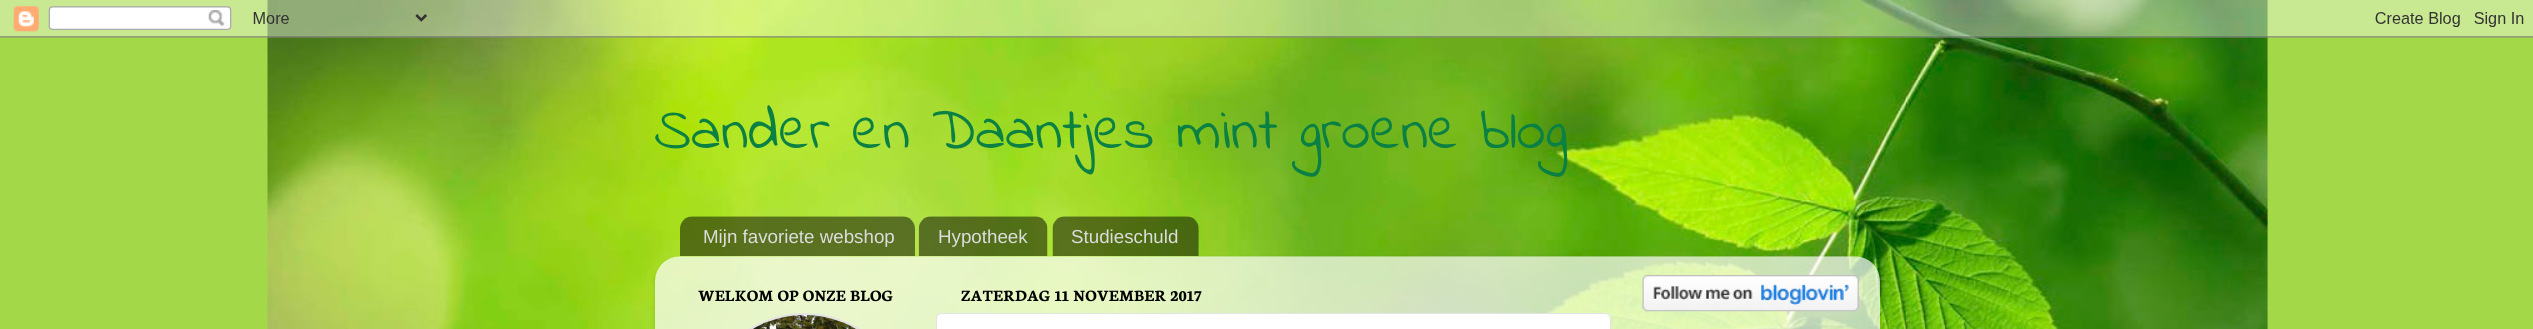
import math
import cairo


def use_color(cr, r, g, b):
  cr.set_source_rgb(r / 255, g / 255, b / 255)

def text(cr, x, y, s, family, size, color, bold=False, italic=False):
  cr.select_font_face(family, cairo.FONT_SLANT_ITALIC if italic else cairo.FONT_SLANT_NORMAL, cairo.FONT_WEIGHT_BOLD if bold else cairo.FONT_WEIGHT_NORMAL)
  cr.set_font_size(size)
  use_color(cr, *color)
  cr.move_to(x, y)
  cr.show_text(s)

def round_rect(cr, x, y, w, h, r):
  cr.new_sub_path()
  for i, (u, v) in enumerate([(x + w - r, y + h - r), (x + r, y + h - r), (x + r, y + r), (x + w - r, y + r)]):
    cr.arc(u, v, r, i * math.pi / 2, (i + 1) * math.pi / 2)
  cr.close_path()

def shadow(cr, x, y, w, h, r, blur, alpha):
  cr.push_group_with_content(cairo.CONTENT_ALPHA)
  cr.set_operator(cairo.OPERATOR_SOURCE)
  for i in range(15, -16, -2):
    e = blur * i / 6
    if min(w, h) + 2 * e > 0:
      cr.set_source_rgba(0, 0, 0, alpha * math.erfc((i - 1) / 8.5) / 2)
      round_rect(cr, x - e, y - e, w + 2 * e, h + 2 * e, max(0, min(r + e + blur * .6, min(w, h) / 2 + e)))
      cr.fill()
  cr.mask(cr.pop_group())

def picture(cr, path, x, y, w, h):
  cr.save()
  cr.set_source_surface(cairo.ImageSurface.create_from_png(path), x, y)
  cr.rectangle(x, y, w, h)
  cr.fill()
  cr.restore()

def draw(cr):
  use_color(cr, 163, 216, 72)
  cr.paint()
  picture(cr, "img_01.png", 267, 0, 2001, 329)
  picture(cr, "img_02.png", 0, 0, 2533, 38)
  picture(cr, "img_03.png", 680, 216, 235, 40)
  picture(cr, "img_04.png", 918, 216, 130, 40)
  picture(cr, "img_05.png", 1052, 216, 147, 40)
  cr.save()
  cr.set_fill_rule(cairo.FILL_RULE_EVEN_ODD)
  cr.new_path()
  cr.move_to(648, 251)
  cr.line_to(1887, 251)
  cr.line_to(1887, 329)
  cr.line_to(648, 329)
  cr.close_path()
  cr.move_to(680, 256)
  cr.line_to(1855, 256)
  cr.curve_to(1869, 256, 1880, 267, 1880, 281)
  cr.line_to(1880, 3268)
  cr.line_to(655, 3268)
  cr.line_to(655, 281)
  cr.curve_to(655, 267, 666, 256, 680, 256)
  cr.close_path()
  cr.clip()
  use_color(cr, 0, 0, 0)
  shadow(cr, 655, 258, 1225, 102, 25, 2, 0.15)
  cr.restore()
  picture(cr, "img_06.png", 655, 256, 1225, 73)
  round_rect(cr, 700.5, 314.5, 208, 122, 104)
  use_color(cr, 227, 227, 227)
  cr.set_line_width(3)
  cr.stroke()
  picture(cr, "img_07.png", 753, 315, 103, 14)
  use_color(cr, 255, 255, 255)
  round_rect(cr, 936.5, 313.5, 674, 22, 5.5)
  cr.fill_preserve()
  use_color(cr, 227, 227, 227)
  cr.set_line_width(1)
  cr.stroke()
  picture(cr, "img_08.png", 1642, 275, 217, 37)
  text(cr, 654, 148, "Sander en Daantjes mint groene blog", "Indie Flower", 59, (11, 128, 67))
  text(cr, 703, 243, "Mijn favoriete webshop", "Liberation Sans", 18.75, (221, 221, 221))
  text(cr, 938, 243, "Hypotheek", "Liberation Sans", 18.75, (221, 221, 221))
  text(cr, 1071, 243, "Studieschuld", "Liberation Sans", 18.75, (221, 221, 221))
  text(cr, 698, 301, "WELKOM OP ONZE BLOG", "Neuton", 16.9, (0, 0, 0), bold=True)
  text(cr, 961, 301, "ZATERDAG 11 NOVEMBER 2017", "Neuton", 16.9, (0, 0, 0), bold=True)


surface = cairo.ImageSurface(cairo.FORMAT_RGB24, 2533, 329)
cr = cairo.Context(surface)
options = cairo.FontOptions()
options.set_hint_metrics(cairo.HINT_METRICS_OFF)
options.set_hint_style(cairo.HINT_STYLE_NONE)
cr.set_font_options(options)
cr.set_miter_limit(4)
draw(cr)
surface.write_to_png("out.png")
